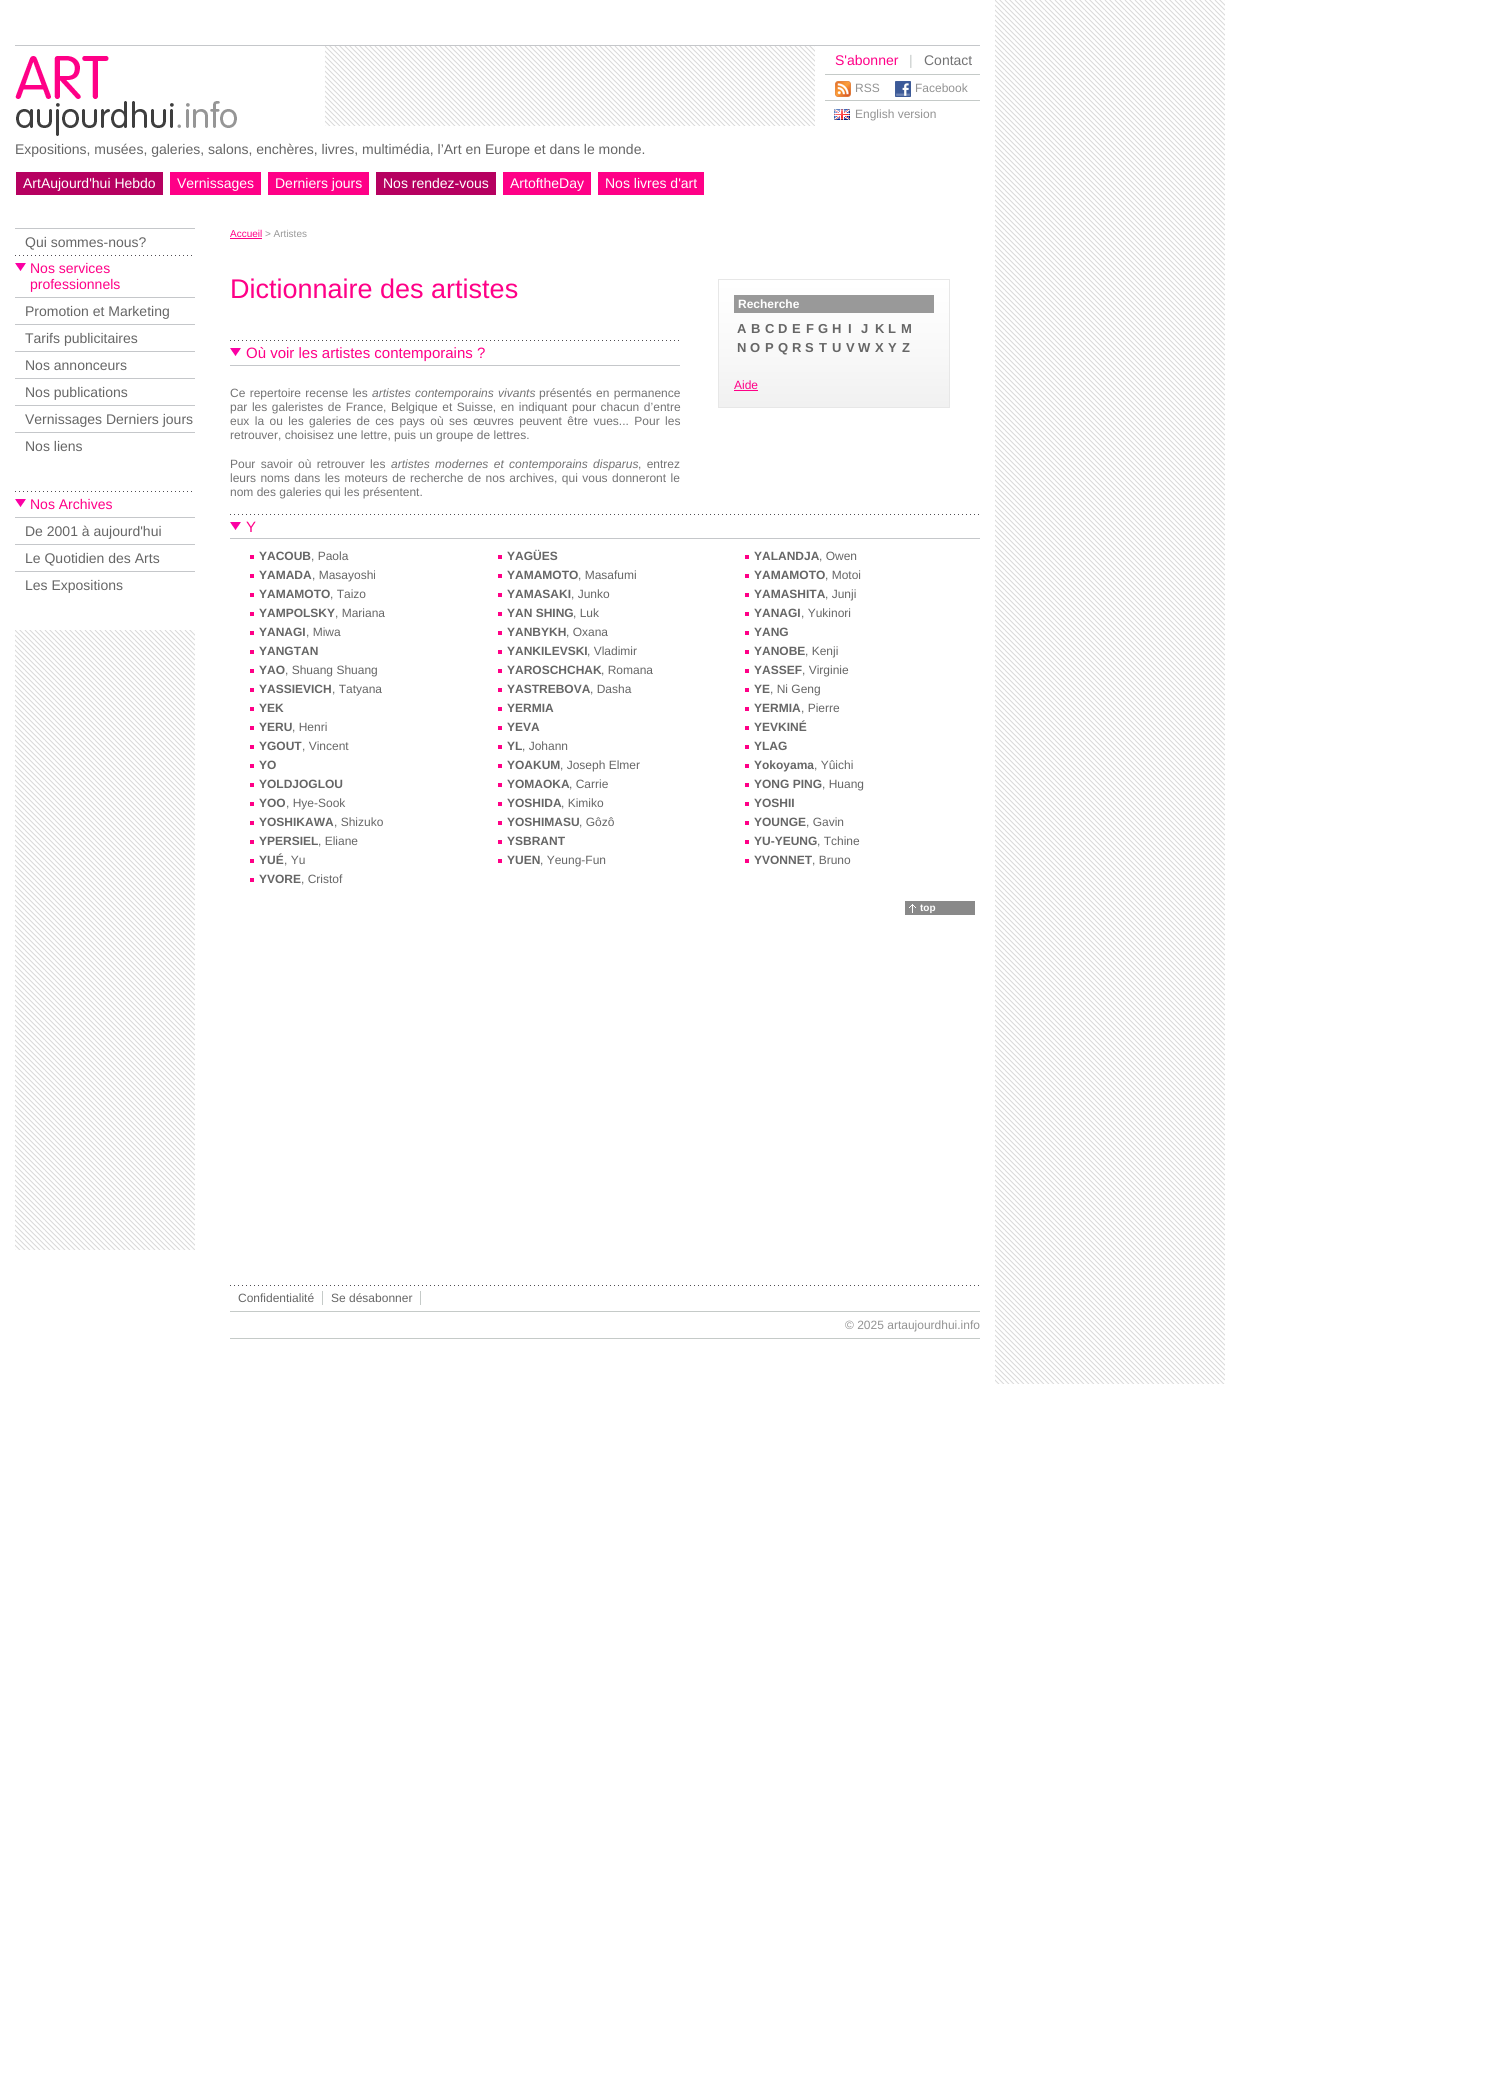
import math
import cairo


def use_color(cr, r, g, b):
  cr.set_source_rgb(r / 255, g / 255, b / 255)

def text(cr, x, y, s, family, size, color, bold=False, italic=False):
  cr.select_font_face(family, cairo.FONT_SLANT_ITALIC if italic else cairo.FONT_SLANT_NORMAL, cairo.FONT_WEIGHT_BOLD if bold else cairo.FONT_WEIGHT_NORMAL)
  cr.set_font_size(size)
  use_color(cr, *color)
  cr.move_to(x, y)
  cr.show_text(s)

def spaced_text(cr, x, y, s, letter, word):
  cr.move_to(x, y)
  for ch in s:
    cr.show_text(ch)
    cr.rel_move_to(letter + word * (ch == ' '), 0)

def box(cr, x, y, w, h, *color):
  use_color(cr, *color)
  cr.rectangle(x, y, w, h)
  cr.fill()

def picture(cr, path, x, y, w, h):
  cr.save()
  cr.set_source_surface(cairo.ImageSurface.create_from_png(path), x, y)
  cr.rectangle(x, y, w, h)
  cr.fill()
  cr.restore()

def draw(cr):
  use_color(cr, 255, 255, 255)
  cr.paint()
  picture(cr, "img_01.png", 995, 0, 230, 1384)
  box(cr, 15, 45, 965, 1, 197, 199, 202)
  picture(cr, "img_02.png", 15, 56, 222, 80)
  picture(cr, "img_03.png", 325, 46, 490, 80)
  box(cr, 825, 74, 155, 1, 197, 202, 200)
  picture(cr, "img_04.png", 835, 81, 16, 16)
  picture(cr, "img_05.png", 895, 81, 16, 16)
  box(cr, 825, 100, 155, 1, 197, 202, 200)
  picture(cr, "img_06.png", 834, 109, 16, 11)
  box(cr, 16, 172, 147, 23, 182, 0, 96)
  box(cr, 170, 172, 91, 23, 255, 0, 135)
  box(cr, 268, 172, 101, 23, 255, 0, 135)
  box(cr, 376, 172, 120, 23, 182, 0, 96)
  box(cr, 503, 172, 88, 23, 255, 0, 135)
  box(cr, 598, 172, 106, 23, 255, 0, 135)
  box(cr, 15, 228, 180, 1, 197, 199, 202)
  picture(cr, "img_07.png", 15, 255, 177, 16)
  box(cr, 15, 297, 180, 1, 197, 199, 202)
  box(cr, 15, 324, 180, 1, 197, 199, 202)
  box(cr, 15, 351, 180, 1, 197, 199, 202)
  box(cr, 15, 378, 180, 1, 197, 199, 202)
  box(cr, 15, 405, 180, 1, 197, 199, 202)
  box(cr, 15, 432, 180, 1, 197, 199, 202)
  picture(cr, "img_07.png", 15, 491, 177, 16)
  box(cr, 15, 517, 180, 1, 197, 199, 202)
  box(cr, 15, 544, 180, 1, 197, 199, 202)
  box(cr, 15, 571, 180, 1, 197, 199, 202)
  picture(cr, "img_08.png", 15, 630, 180, 620)
  box(cr, 230, 238, 32, 1, 255, 0, 135)
  picture(cr, "img_09.png", 230, 340, 449, 16)
  box(cr, 230, 365, 450, 1, 197, 199, 202)
  picture(cr, "img_10.png", 719, 280, 230, 127)
  cr.rectangle(718.5, 279.5, 231, 128)
  use_color(cr, 231, 231, 231)
  cr.set_line_width(1)
  cr.stroke()
  box(cr, 734, 295, 200, 18, 153, 153, 153)
  box(cr, 734, 390, 24, 1, 255, 0, 135)
  picture(cr, "img_11.png", 230, 514, 749, 16)
  box(cr, 230, 538, 750, 1, 197, 199, 202)
  box(cr, 250, 555, 4, 4, 255, 0, 135)
  box(cr, 498, 555, 4, 4, 255, 0, 135)
  box(cr, 745, 555, 4, 4, 255, 0, 135)
  box(cr, 250, 574, 4, 4, 255, 0, 135)
  box(cr, 498, 574, 4, 4, 255, 0, 135)
  box(cr, 745, 574, 4, 4, 255, 0, 135)
  box(cr, 250, 593, 4, 4, 255, 0, 135)
  box(cr, 498, 593, 4, 4, 255, 0, 135)
  box(cr, 745, 593, 4, 4, 255, 0, 135)
  box(cr, 250, 612, 4, 4, 255, 0, 135)
  box(cr, 498, 612, 4, 4, 255, 0, 135)
  box(cr, 745, 612, 4, 4, 255, 0, 135)
  box(cr, 250, 631, 4, 4, 255, 0, 135)
  box(cr, 498, 631, 4, 4, 255, 0, 135)
  box(cr, 745, 631, 4, 4, 255, 0, 135)
  box(cr, 250, 650, 4, 4, 255, 0, 135)
  box(cr, 498, 650, 4, 4, 255, 0, 135)
  box(cr, 745, 650, 4, 4, 255, 0, 135)
  box(cr, 250, 669, 4, 4, 255, 0, 135)
  box(cr, 498, 669, 4, 4, 255, 0, 135)
  box(cr, 745, 669, 4, 4, 255, 0, 135)
  box(cr, 250, 688, 4, 4, 255, 0, 135)
  box(cr, 498, 688, 4, 4, 255, 0, 135)
  box(cr, 745, 688, 4, 4, 255, 0, 135)
  box(cr, 250, 707, 4, 4, 255, 0, 135)
  box(cr, 498, 707, 4, 4, 255, 0, 135)
  box(cr, 745, 707, 4, 4, 255, 0, 135)
  box(cr, 250, 726, 4, 4, 255, 0, 135)
  box(cr, 498, 726, 4, 4, 255, 0, 135)
  box(cr, 745, 726, 4, 4, 255, 0, 135)
  box(cr, 250, 745, 4, 4, 255, 0, 135)
  box(cr, 498, 745, 4, 4, 255, 0, 135)
  box(cr, 745, 745, 4, 4, 255, 0, 135)
  box(cr, 250, 764, 4, 4, 255, 0, 135)
  box(cr, 498, 764, 4, 4, 255, 0, 135)
  box(cr, 745, 764, 4, 4, 255, 0, 135)
  box(cr, 250, 783, 4, 4, 255, 0, 135)
  box(cr, 498, 783, 4, 4, 255, 0, 135)
  box(cr, 745, 783, 4, 4, 255, 0, 135)
  box(cr, 250, 802, 4, 4, 255, 0, 135)
  box(cr, 498, 802, 4, 4, 255, 0, 135)
  box(cr, 745, 802, 4, 4, 255, 0, 135)
  box(cr, 250, 821, 4, 4, 255, 0, 135)
  box(cr, 498, 821, 4, 4, 255, 0, 135)
  box(cr, 745, 821, 4, 4, 255, 0, 135)
  box(cr, 250, 840, 4, 4, 255, 0, 135)
  box(cr, 498, 840, 4, 4, 255, 0, 135)
  box(cr, 745, 840, 4, 4, 255, 0, 135)
  box(cr, 250, 859, 4, 4, 255, 0, 135)
  box(cr, 498, 859, 4, 4, 255, 0, 135)
  box(cr, 745, 859, 4, 4, 255, 0, 135)
  box(cr, 250, 878, 4, 4, 255, 0, 135)
  box(cr, 905, 901, 70, 14, 137, 137, 137)
  picture(cr, "img_12.png", 909, 904, 7, 9)
  picture(cr, "img_13.png", 230, 1285, 749, 1)
  box(cr, 322, 1291, 1, 14, 197, 202, 200)
  box(cr, 420, 1291, 1, 14, 197, 202, 200)
  box(cr, 230, 1311, 750, 1, 197, 202, 200)
  box(cr, 230, 1338, 750, 1, 197, 202, 200)
  text(cr, 835, 65, "S'abonner", "Liberation Sans", 14, (255, 0, 135))
  text(cr, 909, 65, "|", "Liberation Sans", 14, (197, 202, 200))
  text(cr, 924, 65, "Contact", "Liberation Sans", 14, (115, 115, 116))
  text(cr, 855, 92, "RSS", "Liberation Sans", 12, (147, 147, 147))
  text(cr, 915, 92, "Facebook", "Liberation Sans", 12, (147, 147, 147))
  text(cr, 855, 118, "English version", "Liberation Sans", 12, (147, 147, 147))
  text(cr, 15, 154, "Expositions, musées, galeries, salons, enchères, livres, multimédia, l’Art en Europe et dans le monde.", "Liberation Sans", 14, (102, 102, 102))
  text(cr, 23, 188, "ArtAujourd'hui Hebdo", "Liberation Sans", 14, (255, 255, 255))
  text(cr, 177, 188, "Vernissages", "Liberation Sans", 14, (255, 255, 255))
  text(cr, 275, 188, "Derniers jours", "Liberation Sans", 14, (255, 255, 255))
  text(cr, 383, 188, "Nos rendez-vous", "Liberation Sans", 14, (255, 255, 255))
  text(cr, 510, 188, "ArtoftheDay", "Liberation Sans", 14, (255, 255, 255))
  text(cr, 605, 188, "Nos livres d'art", "Liberation Sans", 14, (255, 255, 255))
  text(cr, 25, 247, "Qui sommes-nous?", "Liberation Sans", 14, (102, 102, 102))
  text(cr, 30, 273, "Nos services", "Liberation Sans", 14, (255, 0, 135))
  text(cr, 30, 289, "professionnels", "Liberation Sans", 14, (255, 0, 135))
  text(cr, 25, 316, "Promotion et Marketing", "Liberation Sans", 14, (102, 102, 102))
  text(cr, 25, 343, "Tarifs publicitaires", "Liberation Sans", 14, (102, 102, 102))
  text(cr, 25, 370, "Nos annonceurs", "Liberation Sans", 14, (102, 102, 102))
  text(cr, 25, 397, "Nos publications", "Liberation Sans", 14, (102, 102, 102))
  text(cr, 25, 424, "Vernissages Derniers jours", "Liberation Sans", 14, (102, 102, 102))
  text(cr, 25, 451, "Nos liens", "Liberation Sans", 14, (102, 102, 102))
  text(cr, 30, 509, "Nos Archives", "Liberation Sans", 14, (255, 0, 135))
  text(cr, 25, 536, "De 2001 à aujourd'hui", "Liberation Sans", 14, (102, 102, 102))
  text(cr, 25, 563, "Le Quotidien des Arts", "Liberation Sans", 14, (102, 102, 102))
  text(cr, 25, 590, "Les Expositions", "Liberation Sans", 14, (102, 102, 102))
  text(cr, 230, 237, "Accueil", "Liberation Sans", 10, (255, 0, 135))
  text(cr, 265, 237, "> Artistes", "Liberation Sans", 10, (153, 153, 153))
  text(cr, 230, 298, "Dictionnaire des artistes", "Liberation Sans", 27, (255, 0, 135))
  text(cr, 246, 358, "Où voir les artistes contemporains ?", "Liberation Sans", 15, (255, 0, 135))
  cr.set_font_size(12)
  use_color(cr, 115, 115, 116)
  spaced_text(cr, 230, 397, "Ce repertoire recense les", 0, 1)
  cr.select_font_face("Liberation Sans", cairo.FONT_SLANT_ITALIC)
  spaced_text(cr, 372, 397, "artistes contemporains vivants", 0, 1)
  cr.select_font_face("Liberation Sans")
  spaced_text(cr, 539, 397, "présentés en permanence", 0, 1)
  spaced_text(cr, 230, 411, "par les galeristes de France, Belgique et Suisse, en indiquant pour chacun d’entre", 0, 1.25)
  spaced_text(cr, 230, 425, "eux la ou les galeries de ces pays où ses œuvres peuvent être vues... Pour les", 0, 2.1)
  text(cr, 230, 439, "retrouver, choisisez une lettre, puis un groupe de lettres.", "Liberation Sans", 12, (115, 115, 116))
  spaced_text(cr, 230, 468, "Pour savoir où retrouver les", 0, 2)
  cr.select_font_face("Liberation Sans", cairo.FONT_SLANT_ITALIC)
  spaced_text(cr, 391, 468, "artistes modernes et contemporains disparus", 0, 2)
  cr.select_font_face("Liberation Sans")
  spaced_text(cr, 638, 468, ", entrez", 0, 2)
  spaced_text(cr, 230, 482, "leurs noms dans les moteurs de recherche de nos archives, qui vous donneront le", 0, 1.1)
  text(cr, 230, 496, "nom des galeries qui les présentent.", "Liberation Sans", 12, (115, 115, 116))
  text(cr, 738, 308, "Recherche", "Liberation Sans", 12, (255, 255, 255), bold=True)
  text(cr, 737, 333, "A", "Liberation Sans", 13, (102, 102, 102), bold=True)
  text(cr, 751, 333, "B", "Liberation Sans", 13, (102, 102, 102), bold=True)
  text(cr, 765, 333, "C", "Liberation Sans", 13, (102, 102, 102), bold=True)
  text(cr, 778, 333, "D", "Liberation Sans", 13, (102, 102, 102), bold=True)
  text(cr, 792, 333, "E", "Liberation Sans", 13, (102, 102, 102), bold=True)
  text(cr, 806, 333, "F", "Liberation Sans", 13, (102, 102, 102), bold=True)
  text(cr, 818, 333, "G", "Liberation Sans", 13, (102, 102, 102), bold=True)
  text(cr, 832, 333, "H", "Liberation Sans", 13, (102, 102, 102), bold=True)
  text(cr, 848, 333, "I", "Liberation Sans", 13, (102, 102, 102), bold=True)
  text(cr, 861, 333, "J", "Liberation Sans", 13, (102, 102, 102), bold=True)
  text(cr, 875, 333, "K", "Liberation Sans", 13, (102, 102, 102), bold=True)
  text(cr, 888, 333, "L", "Liberation Sans", 13, (102, 102, 102), bold=True)
  text(cr, 901, 333, "M", "Liberation Sans", 13, (102, 102, 102), bold=True)
  text(cr, 737, 352, "N", "Liberation Sans", 13, (102, 102, 102), bold=True)
  text(cr, 750, 352, "O", "Liberation Sans", 13, (102, 102, 102), bold=True)
  text(cr, 765, 352, "P", "Liberation Sans", 13, (102, 102, 102), bold=True)
  text(cr, 778, 352, "Q", "Liberation Sans", 13, (102, 102, 102), bold=True)
  text(cr, 792, 352, "R", "Liberation Sans", 13, (102, 102, 102), bold=True)
  text(cr, 805, 352, "S", "Liberation Sans", 13, (102, 102, 102), bold=True)
  text(cr, 819, 352, "T", "Liberation Sans", 13, (102, 102, 102), bold=True)
  text(cr, 832, 352, "U", "Liberation Sans", 13, (102, 102, 102), bold=True)
  text(cr, 846, 352, "V", "Liberation Sans", 13, (102, 102, 102), bold=True)
  text(cr, 858, 352, "W", "Liberation Sans", 13, (102, 102, 102), bold=True)
  text(cr, 875, 352, "X", "Liberation Sans", 13, (102, 102, 102), bold=True)
  text(cr, 888, 352, "Y", "Liberation Sans", 13, (102, 102, 102), bold=True)
  text(cr, 902, 352, "Z", "Liberation Sans", 13, (102, 102, 102), bold=True)
  text(cr, 734, 389, "Aide", "Liberation Sans", 12, (255, 0, 135))
  text(cr, 246, 532, "Y", "Liberation Sans", 15, (255, 0, 135))
  text(cr, 259, 560, "YACOUB", "Liberation Sans", 12, (102, 102, 102), bold=True)
  text(cr, 311, 560, ", Paola", "Liberation Sans", 12, (102, 102, 102))
  text(cr, 507, 560, "YAGÜES", "Liberation Sans", 12, (102, 102, 102), bold=True)
  text(cr, 754, 560, "YALANDJA", "Liberation Sans", 12, (102, 102, 102), bold=True)
  text(cr, 819, 560, ", Owen", "Liberation Sans", 12, (102, 102, 102))
  text(cr, 259, 579, "YAMADA", "Liberation Sans", 12, (102, 102, 102), bold=True)
  text(cr, 312, 579, ", Masayoshi", "Liberation Sans", 12, (102, 102, 102))
  text(cr, 507, 579, "YAMAMOTO", "Liberation Sans", 12, (102, 102, 102), bold=True)
  text(cr, 578, 579, ", Masafumi", "Liberation Sans", 12, (102, 102, 102))
  text(cr, 754, 579, "YAMAMOTO", "Liberation Sans", 12, (102, 102, 102), bold=True)
  text(cr, 825, 579, ", Motoi", "Liberation Sans", 12, (102, 102, 102))
  text(cr, 259, 598, "YAMAMOTO", "Liberation Sans", 12, (102, 102, 102), bold=True)
  text(cr, 330, 598, ", Taizo", "Liberation Sans", 12, (102, 102, 102))
  text(cr, 507, 598, "YAMASAKI", "Liberation Sans", 12, (102, 102, 102), bold=True)
  text(cr, 571, 598, ", Junko", "Liberation Sans", 12, (102, 102, 102))
  text(cr, 754, 598, "YAMASHITA", "Liberation Sans", 12, (102, 102, 102), bold=True)
  text(cr, 825, 598, ", Junji", "Liberation Sans", 12, (102, 102, 102))
  text(cr, 259, 617, "YAMPOLSKY", "Liberation Sans", 12, (102, 102, 102), bold=True)
  text(cr, 335, 617, ", Mariana", "Liberation Sans", 12, (102, 102, 102))
  text(cr, 507, 617, "YAN SHING", "Liberation Sans", 12, (102, 102, 102), bold=True)
  text(cr, 573, 617, ", Luk", "Liberation Sans", 12, (102, 102, 102))
  text(cr, 754, 617, "YANAGI", "Liberation Sans", 12, (102, 102, 102), bold=True)
  text(cr, 801, 617, ", Yukinori", "Liberation Sans", 12, (102, 102, 102))
  text(cr, 259, 636, "YANAGI", "Liberation Sans", 12, (102, 102, 102), bold=True)
  text(cr, 306, 636, ", Miwa", "Liberation Sans", 12, (102, 102, 102))
  text(cr, 507, 636, "YANBYKH", "Liberation Sans", 12, (102, 102, 102), bold=True)
  text(cr, 566, 636, ", Oxana", "Liberation Sans", 12, (102, 102, 102))
  text(cr, 754, 636, "YANG", "Liberation Sans", 12, (102, 102, 102), bold=True)
  text(cr, 259, 655, "YANGTAN", "Liberation Sans", 12, (102, 102, 102), bold=True)
  text(cr, 507, 655, "YANKILEVSKI", "Liberation Sans", 12, (102, 102, 102), bold=True)
  text(cr, 587, 655, ", Vladimir", "Liberation Sans", 12, (102, 102, 102))
  text(cr, 754, 655, "YANOBE", "Liberation Sans", 12, (102, 102, 102), bold=True)
  text(cr, 805, 655, ", Kenji", "Liberation Sans", 12, (102, 102, 102))
  text(cr, 259, 674, "YAO", "Liberation Sans", 12, (102, 102, 102), bold=True)
  text(cr, 285, 674, ", Shuang Shuang", "Liberation Sans", 12, (102, 102, 102))
  text(cr, 507, 674, "YAROSCHCHAK", "Liberation Sans", 12, (102, 102, 102), bold=True)
  text(cr, 601, 674, ", Romana", "Liberation Sans", 12, (102, 102, 102))
  text(cr, 754, 674, "YASSEF", "Liberation Sans", 12, (102, 102, 102), bold=True)
  text(cr, 802, 674, ", Virginie", "Liberation Sans", 12, (102, 102, 102))
  text(cr, 259, 693, "YASSIEVICH", "Liberation Sans", 12, (102, 102, 102), bold=True)
  text(cr, 332, 693, ", Tatyana", "Liberation Sans", 12, (102, 102, 102))
  text(cr, 507, 693, "YASTREBOVA", "Liberation Sans", 12, (102, 102, 102), bold=True)
  text(cr, 590, 693, ", Dasha", "Liberation Sans", 12, (102, 102, 102))
  text(cr, 754, 693, "YE", "Liberation Sans", 12, (102, 102, 102), bold=True)
  text(cr, 770, 693, ", Ni Geng", "Liberation Sans", 12, (102, 102, 102))
  text(cr, 259, 712, "YEK", "Liberation Sans", 12, (102, 102, 102), bold=True)
  text(cr, 507, 712, "YERMIA", "Liberation Sans", 12, (102, 102, 102), bold=True)
  text(cr, 754, 712, "YERMIA", "Liberation Sans", 12, (102, 102, 102), bold=True)
  text(cr, 801, 712, ", Pierre", "Liberation Sans", 12, (102, 102, 102))
  text(cr, 259, 731, "YERU", "Liberation Sans", 12, (102, 102, 102), bold=True)
  text(cr, 292, 731, ", Henri", "Liberation Sans", 12, (102, 102, 102))
  text(cr, 507, 731, "YEVA", "Liberation Sans", 12, (102, 102, 102), bold=True)
  text(cr, 754, 731, "YEVKINÉ", "Liberation Sans", 12, (102, 102, 102), bold=True)
  text(cr, 259, 750, "YGOUT", "Liberation Sans", 12, (102, 102, 102), bold=True)
  text(cr, 302, 750, ", Vincent", "Liberation Sans", 12, (102, 102, 102))
  text(cr, 507, 750, "YL", "Liberation Sans", 12, (102, 102, 102), bold=True)
  text(cr, 522, 750, ", Johann", "Liberation Sans", 12, (102, 102, 102))
  text(cr, 754, 750, "YLAG", "Liberation Sans", 12, (102, 102, 102), bold=True)
  text(cr, 259, 769, "YO", "Liberation Sans", 12, (102, 102, 102), bold=True)
  text(cr, 507, 769, "YOAKUM", "Liberation Sans", 12, (102, 102, 102), bold=True)
  text(cr, 560, 769, ", Joseph Elmer", "Liberation Sans", 12, (102, 102, 102))
  text(cr, 754, 769, "Yokoyama", "Liberation Sans", 12, (102, 102, 102), bold=True)
  text(cr, 814, 769, ", Yûichi", "Liberation Sans", 12, (102, 102, 102))
  text(cr, 259, 788, "YOLDJOGLOU", "Liberation Sans", 12, (102, 102, 102), bold=True)
  text(cr, 507, 788, "YOMAOKA", "Liberation Sans", 12, (102, 102, 102), bold=True)
  text(cr, 569, 788, ", Carrie", "Liberation Sans", 12, (102, 102, 102))
  text(cr, 754, 788, "YONG PING", "Liberation Sans", 12, (102, 102, 102), bold=True)
  text(cr, 822, 788, ", Huang", "Liberation Sans", 12, (102, 102, 102))
  text(cr, 259, 807, "YOO", "Liberation Sans", 12, (102, 102, 102), bold=True)
  text(cr, 286, 807, ", Hye-Sook", "Liberation Sans", 12, (102, 102, 102))
  text(cr, 507, 807, "YOSHIDA", "Liberation Sans", 12, (102, 102, 102), bold=True)
  text(cr, 561, 807, ", Kimiko", "Liberation Sans", 12, (102, 102, 102))
  text(cr, 754, 807, "YOSHII", "Liberation Sans", 12, (102, 102, 102), bold=True)
  text(cr, 259, 826, "YOSHIKAWA", "Liberation Sans", 12, (102, 102, 102), bold=True)
  text(cr, 334, 826, ", Shizuko", "Liberation Sans", 12, (102, 102, 102))
  text(cr, 507, 826, "YOSHIMASU", "Liberation Sans", 12, (102, 102, 102), bold=True)
  text(cr, 579, 826, ", Gôzô", "Liberation Sans", 12, (102, 102, 102))
  text(cr, 754, 826, "YOUNGE", "Liberation Sans", 12, (102, 102, 102), bold=True)
  text(cr, 806, 826, ", Gavin", "Liberation Sans", 12, (102, 102, 102))
  text(cr, 259, 845, "YPERSIEL", "Liberation Sans", 12, (102, 102, 102), bold=True)
  text(cr, 318, 845, ", Eliane", "Liberation Sans", 12, (102, 102, 102))
  text(cr, 507, 845, "YSBRANT", "Liberation Sans", 12, (102, 102, 102), bold=True)
  text(cr, 754, 845, "YU-YEUNG", "Liberation Sans", 12, (102, 102, 102), bold=True)
  text(cr, 817, 845, ", Tchine", "Liberation Sans", 12, (102, 102, 102))
  text(cr, 259, 864, "YUÉ", "Liberation Sans", 12, (102, 102, 102), bold=True)
  text(cr, 284, 864, ", Yu", "Liberation Sans", 12, (102, 102, 102))
  text(cr, 507, 864, "YUEN", "Liberation Sans", 12, (102, 102, 102), bold=True)
  text(cr, 540, 864, ", Yeung-Fun", "Liberation Sans", 12, (102, 102, 102))
  text(cr, 754, 864, "YVONNET", "Liberation Sans", 12, (102, 102, 102), bold=True)
  text(cr, 812, 864, ", Bruno", "Liberation Sans", 12, (102, 102, 102))
  text(cr, 259, 883, "YVORE", "Liberation Sans", 12, (102, 102, 102), bold=True)
  text(cr, 301, 883, ", Cristof", "Liberation Sans", 12, (102, 102, 102))
  text(cr, 920, 911, "top", "Liberation Sans", 10, (255, 255, 255), bold=True)
  text(cr, 238, 1302, "Confidentialité", "Liberation Sans", 12, (102, 102, 102))
  text(cr, 331, 1302, "Se désabonner", "Liberation Sans", 12, (102, 102, 102))
  text(cr, 845, 1329, "© 2025 artaujourdhui.info", "Liberation Sans", 12, (147, 147, 147))


surface = cairo.ImageSurface(cairo.FORMAT_RGB24, 1488, 2088)
cr = cairo.Context(surface)
options = cairo.FontOptions()
options.set_hint_metrics(cairo.HINT_METRICS_OFF)
options.set_hint_style(cairo.HINT_STYLE_NONE)
cr.set_font_options(options)
cr.set_miter_limit(4)
draw(cr)
surface.write_to_png("out.png")
